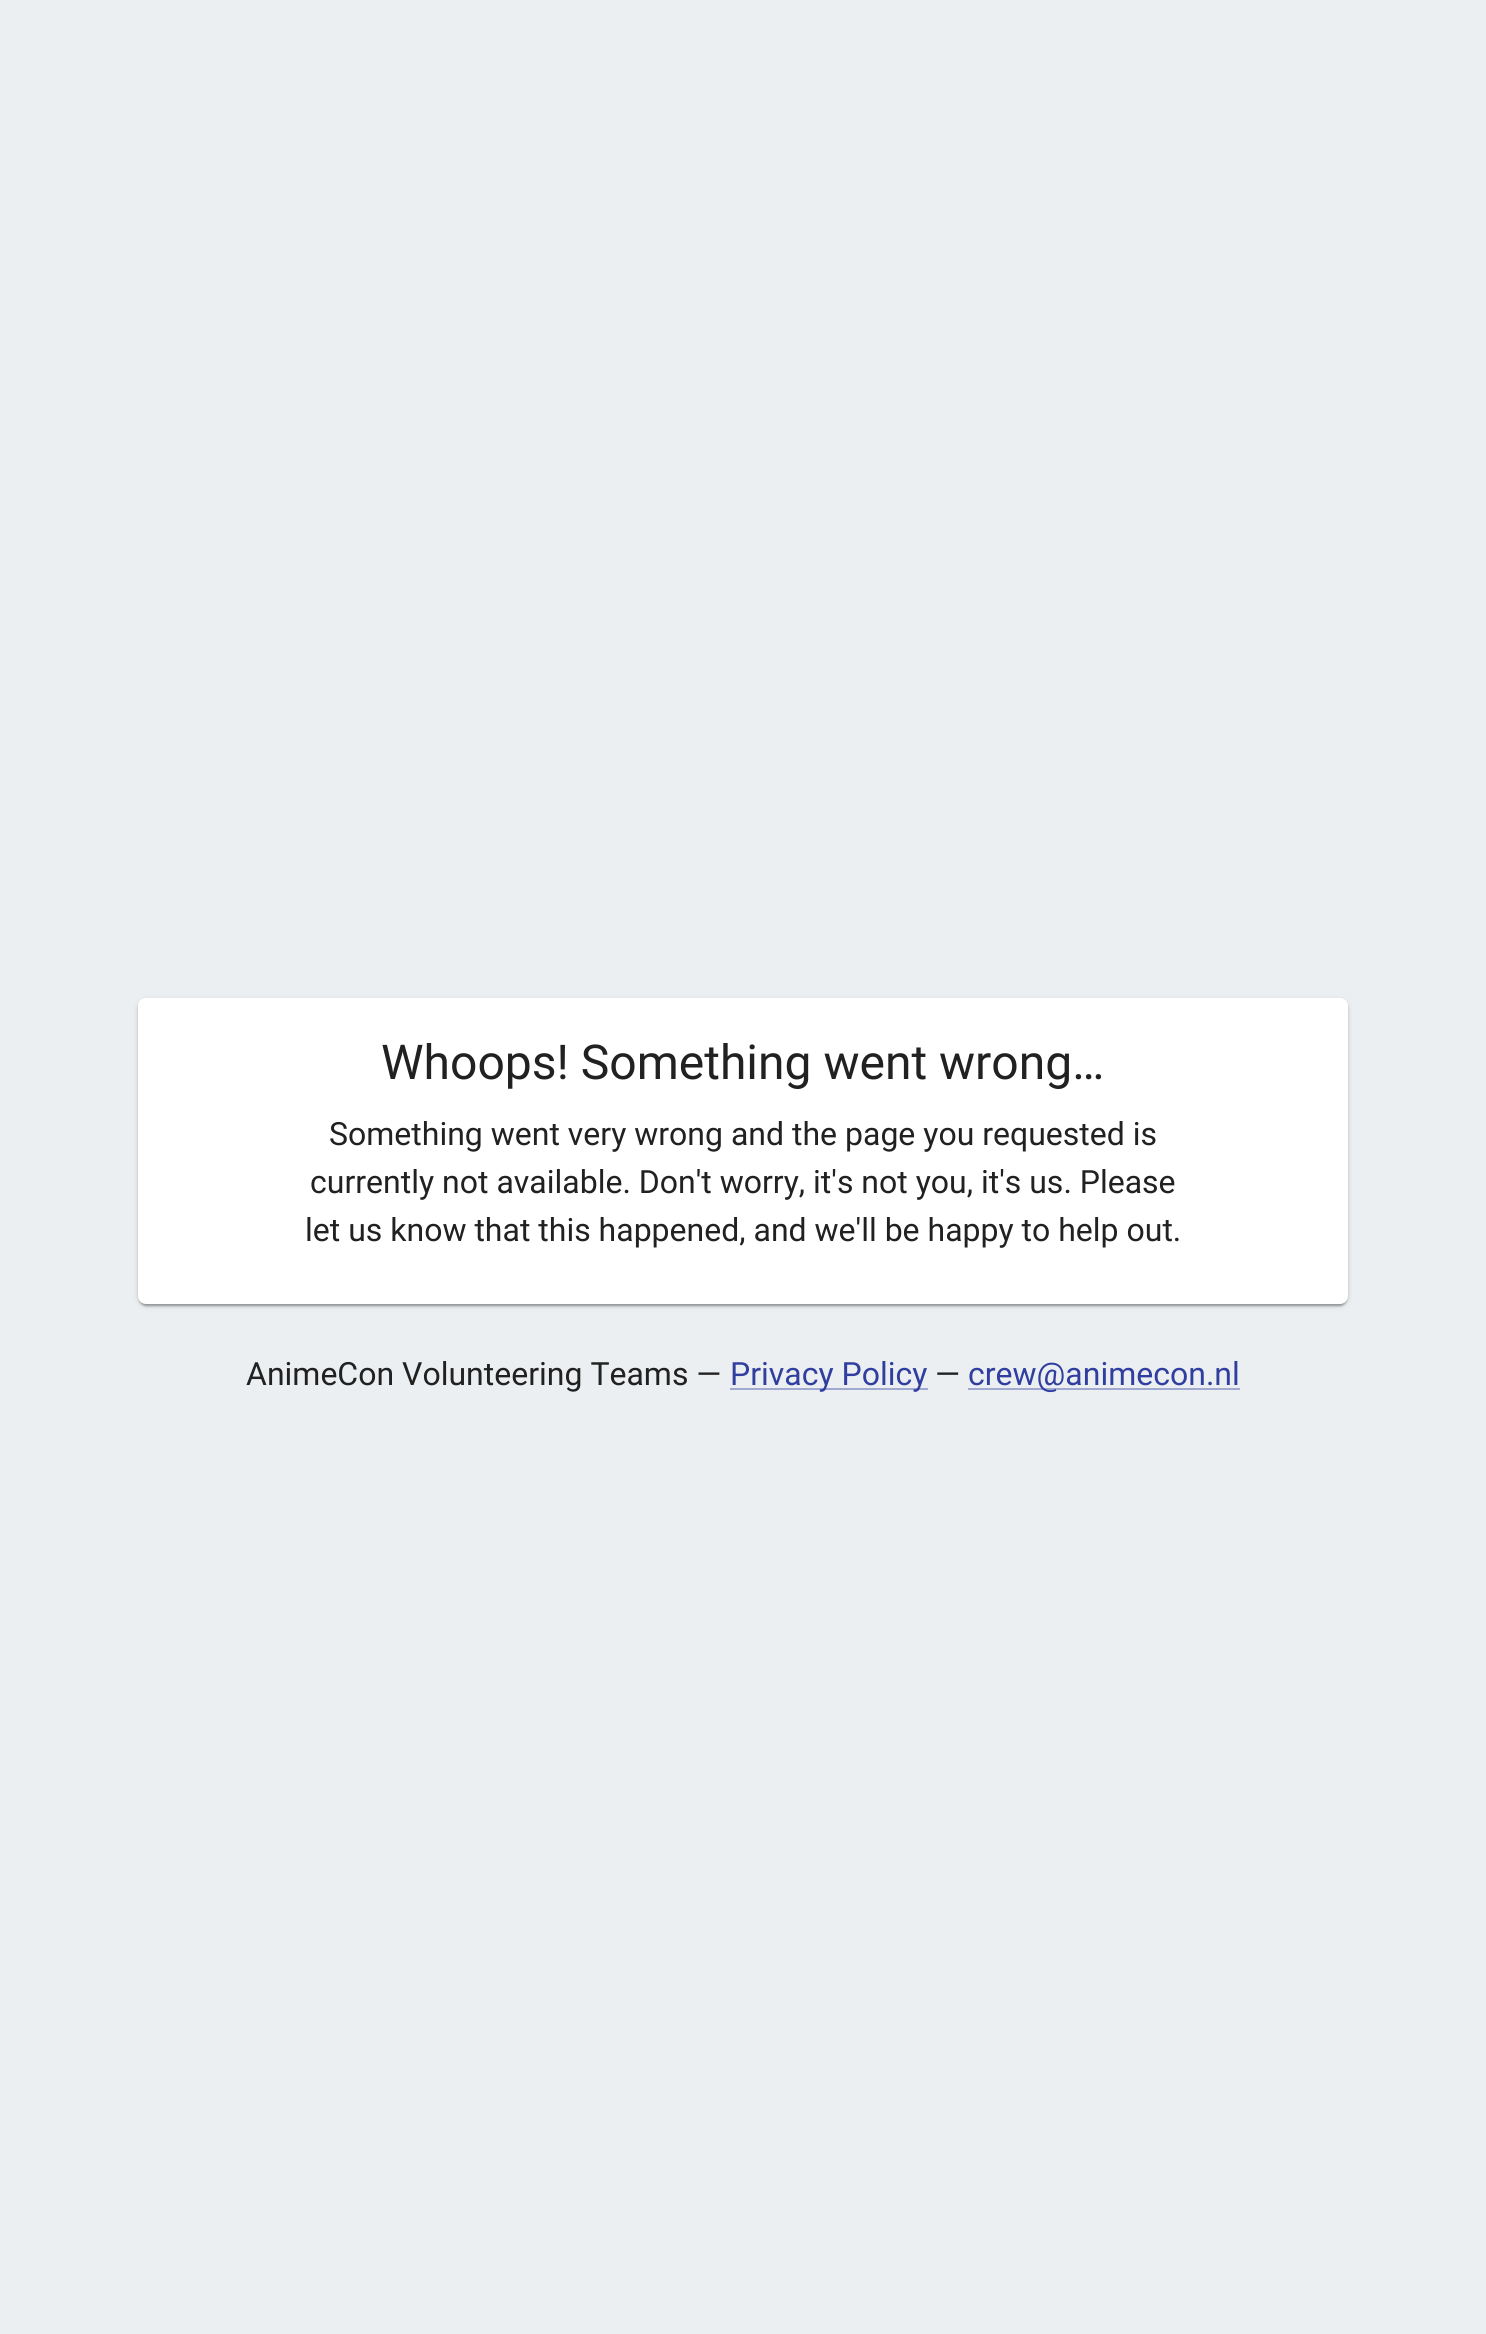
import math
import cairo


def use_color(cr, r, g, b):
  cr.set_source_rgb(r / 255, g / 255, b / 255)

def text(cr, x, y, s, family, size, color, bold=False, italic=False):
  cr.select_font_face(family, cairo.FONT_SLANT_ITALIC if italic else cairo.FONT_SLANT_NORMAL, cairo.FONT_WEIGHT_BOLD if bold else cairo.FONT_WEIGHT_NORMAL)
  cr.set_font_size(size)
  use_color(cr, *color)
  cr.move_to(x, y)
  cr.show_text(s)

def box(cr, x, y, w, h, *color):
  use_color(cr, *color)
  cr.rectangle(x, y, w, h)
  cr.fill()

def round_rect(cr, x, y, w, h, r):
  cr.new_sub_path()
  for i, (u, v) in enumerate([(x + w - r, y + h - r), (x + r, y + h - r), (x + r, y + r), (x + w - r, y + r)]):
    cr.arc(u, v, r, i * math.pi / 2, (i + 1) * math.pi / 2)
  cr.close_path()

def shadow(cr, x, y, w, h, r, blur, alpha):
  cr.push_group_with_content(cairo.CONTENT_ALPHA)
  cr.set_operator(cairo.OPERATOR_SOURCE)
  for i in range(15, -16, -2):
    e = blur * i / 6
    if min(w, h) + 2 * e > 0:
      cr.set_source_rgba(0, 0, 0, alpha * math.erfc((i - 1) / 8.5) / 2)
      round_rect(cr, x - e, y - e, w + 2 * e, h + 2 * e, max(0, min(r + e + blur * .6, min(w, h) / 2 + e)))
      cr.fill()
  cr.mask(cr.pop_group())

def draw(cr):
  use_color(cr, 236, 239, 241)
  cr.paint()
  use_color(cr, 0, 0, 0)
  shadow(cr, 138, 1000, 1210, 306, 8, 3, 0.12)
  shadow(cr, 138, 1000, 1210, 306, 8, 1, 0.14)
  shadow(cr, 140, 1004, 1206, 302, 6, 1, 0.2)
  use_color(cr, 255, 255, 255)
  round_rect(cr, 138, 998, 1210, 306, 8)
  cr.fill()
  box(cr, 730, 1388, 198, 2, 161, 169, 208)
  box(cr, 968, 1388, 272, 2, 161, 169, 208)
  text(cr, 381, 1079, "Whoops! Something went wrong…", "Roboto", 48, (33, 33, 33))
  text(cr, 329, 1145, "Something went very wrong and the page you requested is", "Roboto", 32, (33, 33, 33))
  text(cr, 310, 1193, "currently not available. Don't worry, it's not you, it's us. Please", "Roboto", 32, (33, 33, 33))
  text(cr, 305, 1241, "let us know that this happened, and we'll be happy to help out.", "Roboto", 32, (33, 33, 33))
  text(cr, 246, 1385, "AnimeCon Volunteering Teams —", "Roboto", 32, (33, 33, 33))
  text(cr, 730, 1385, "Privacy Policy", "Roboto", 32, (48, 63, 159))
  text(cr, 935, 1385, "—", "Roboto", 32, (33, 33, 33))
  text(cr, 968, 1385, "crew@animecon.nl", "Roboto", 32, (48, 63, 159))


surface = cairo.ImageSurface(cairo.FORMAT_RGB24, 1486, 2334)
cr = cairo.Context(surface)
options = cairo.FontOptions()
options.set_hint_metrics(cairo.HINT_METRICS_OFF)
options.set_hint_style(cairo.HINT_STYLE_NONE)
cr.set_font_options(options)
cr.set_miter_limit(4)
draw(cr)
surface.write_to_png("out.png")
